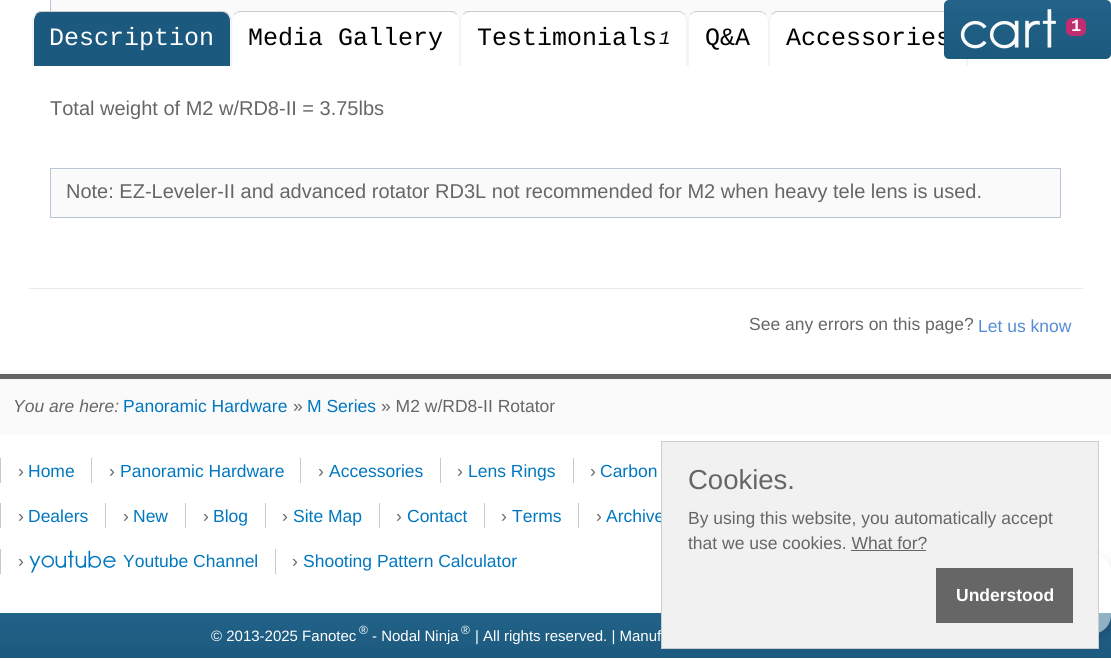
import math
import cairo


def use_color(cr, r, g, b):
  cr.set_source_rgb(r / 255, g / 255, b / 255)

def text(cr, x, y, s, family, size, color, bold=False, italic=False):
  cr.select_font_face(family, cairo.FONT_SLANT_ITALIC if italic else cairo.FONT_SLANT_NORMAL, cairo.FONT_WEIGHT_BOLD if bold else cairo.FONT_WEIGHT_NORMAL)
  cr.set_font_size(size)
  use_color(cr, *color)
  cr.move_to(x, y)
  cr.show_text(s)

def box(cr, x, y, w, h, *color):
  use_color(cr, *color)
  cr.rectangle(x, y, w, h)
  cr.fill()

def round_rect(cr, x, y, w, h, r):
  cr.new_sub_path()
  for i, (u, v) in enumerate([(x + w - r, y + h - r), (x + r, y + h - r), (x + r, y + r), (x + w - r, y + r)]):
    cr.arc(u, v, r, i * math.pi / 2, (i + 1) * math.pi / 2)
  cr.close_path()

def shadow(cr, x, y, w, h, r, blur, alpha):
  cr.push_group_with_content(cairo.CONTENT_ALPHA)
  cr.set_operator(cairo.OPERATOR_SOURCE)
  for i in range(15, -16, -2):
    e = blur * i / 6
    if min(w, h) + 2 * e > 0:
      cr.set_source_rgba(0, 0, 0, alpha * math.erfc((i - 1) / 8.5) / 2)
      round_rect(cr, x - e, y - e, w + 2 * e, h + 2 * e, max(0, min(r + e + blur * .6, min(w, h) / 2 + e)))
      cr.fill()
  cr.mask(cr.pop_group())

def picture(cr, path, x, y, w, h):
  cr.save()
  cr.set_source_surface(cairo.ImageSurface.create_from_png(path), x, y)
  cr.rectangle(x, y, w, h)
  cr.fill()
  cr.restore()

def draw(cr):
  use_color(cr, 255, 255, 255)
  cr.paint()
  box(cr, 51, 0, 898, 21, 250, 250, 250)
  cr.rectangle(50.5, -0.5, 1010, 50)
  use_color(cr, 188, 196, 218)
  cr.set_line_width(1)
  cr.stroke()
  use_color(cr, 28, 89, 126)
  cr.new_path()
  cr.move_to(43, 11)
  cr.line_to(221, 11)
  cr.curve_to(226.5, 11, 231, 15.5, 231, 21)
  cr.line_to(231, 66)
  cr.line_to(33, 66)
  cr.line_to(33, 21)
  cr.curve_to(33, 15.5, 37.5, 11, 43, 11)
  cr.close_path()
  cr.fill()
  use_color(cr, 204, 204, 204)
  cr.new_path()
  cr.move_to(42, 12)
  cr.curve_to(39, 12, 37, 13, 36, 15)
  cr.line_to(35, 14)
  cr.curve_to(36, 13, 38, 12, 40, 11)
  cr.line_to(224, 11)
  cr.curve_to(226, 12, 227, 13, 229, 14)
  cr.line_to(228, 15)
  cr.curve_to(226, 13, 224, 12, 222, 12)
  cr.close_path()
  cr.fill()
  use_color(cr, 244, 244, 244)
  cr.new_path()
  cr.move_to(229, 14)
  cr.line_to(228, 15)
  cr.curve_to(229, 16, 230, 19, 230, 21)
  cr.line_to(230, 66)
  cr.line_to(231, 66)
  cr.line_to(231, 21)
  cr.curve_to(231, 18, 230, 16, 229, 14)
  cr.close_path()
  cr.fill()
  cr.new_path()
  cr.move_to(32, 18)
  cr.line_to(35, 14)
  cr.line_to(36, 15)
  cr.curve_to(35, 16, 34, 19, 34, 21)
  cr.line_to(34, 66)
  cr.line_to(32, 66)
  cr.close_path()
  cr.fill()
  use_color(cr, 255, 255, 255)
  cr.new_path()
  cr.move_to(241, 11)
  cr.line_to(450, 11)
  cr.curve_to(455.5, 11, 460, 15.5, 460, 21)
  cr.line_to(460, 66)
  cr.line_to(231, 66)
  cr.line_to(231, 21)
  cr.curve_to(231, 15.5, 235.5, 11, 241, 11)
  cr.close_path()
  cr.fill()
  use_color(cr, 204, 204, 204)
  cr.new_path()
  cr.move_to(241, 12)
  cr.curve_to(238, 12, 236, 13, 235, 15)
  cr.line_to(234, 14)
  cr.curve_to(235, 13, 237, 12, 239, 11)
  cr.line_to(453, 11)
  cr.curve_to(455, 12, 456, 13, 457, 14)
  cr.line_to(457, 15)
  cr.curve_to(455, 13, 453, 12, 451, 12)
  cr.close_path()
  cr.fill()
  use_color(cr, 244, 244, 244)
  cr.new_path()
  cr.move_to(460, 66)
  cr.line_to(460, 21)
  cr.curve_to(460, 18, 459, 16, 457, 14)
  cr.line_to(457, 15)
  cr.curve_to(458, 16, 459, 19, 459, 21)
  cr.line_to(459, 66)
  cr.close_path()
  cr.fill()
  cr.new_path()
  cr.move_to(231, 19)
  cr.curve_to(232, 17, 233, 15, 234, 14)
  cr.line_to(235, 15)
  cr.curve_to(233, 16, 232, 18, 232, 21)
  cr.line_to(232, 66)
  cr.line_to(231, 66)
  cr.close_path()
  cr.fill()
  use_color(cr, 255, 255, 255)
  cr.new_path()
  cr.move_to(470, 11)
  cr.line_to(678, 11)
  cr.curve_to(683.5, 11, 688, 15.5, 688, 21)
  cr.line_to(688, 66)
  cr.line_to(460, 66)
  cr.line_to(460, 21)
  cr.curve_to(460, 15.5, 464.5, 11, 470, 11)
  cr.close_path()
  cr.fill()
  use_color(cr, 204, 204, 204)
  cr.new_path()
  cr.move_to(469, 12)
  cr.curve_to(467, 12, 465, 13, 463, 15)
  cr.line_to(463, 14)
  cr.curve_to(464, 13, 465, 12, 467, 11)
  cr.line_to(680, 11)
  cr.curve_to(682, 12, 684, 13, 685, 14)
  cr.line_to(684, 15)
  cr.curve_to(683, 13, 681, 12, 678, 12)
  cr.close_path()
  cr.fill()
  use_color(cr, 244, 244, 244)
  cr.new_path()
  cr.move_to(688, 18)
  cr.line_to(688, 66)
  cr.line_to(686, 66)
  cr.line_to(686, 21)
  cr.curve_to(686, 19, 685, 16, 684, 15)
  cr.line_to(685, 14)
  cr.close_path()
  cr.fill()
  cr.new_path()
  cr.move_to(460, 21)
  cr.line_to(460, 66)
  cr.line_to(461, 66)
  cr.line_to(461, 21)
  cr.curve_to(461, 19, 462, 16, 463, 15)
  cr.line_to(463, 14)
  cr.curve_to(461, 16, 460, 18, 460, 21)
  cr.close_path()
  cr.fill()
  use_color(cr, 255, 255, 255)
  cr.new_path()
  cr.move_to(698, 11)
  cr.line_to(759, 11)
  cr.curve_to(764.5, 11, 769, 15.5, 769, 21)
  cr.line_to(769, 66)
  cr.line_to(688, 66)
  cr.line_to(688, 21)
  cr.curve_to(688, 15.5, 692.5, 11, 698, 11)
  cr.close_path()
  cr.fill()
  use_color(cr, 204, 204, 204)
  cr.new_path()
  cr.move_to(697, 12)
  cr.curve_to(694, 12, 692, 13, 691, 15)
  cr.line_to(690, 14)
  cr.curve_to(692, 13, 693, 12, 695, 11)
  cr.line_to(761, 11)
  cr.curve_to(763, 12, 765, 13, 766, 14)
  cr.line_to(765, 15)
  cr.curve_to(764, 13, 762, 12, 759, 12)
  cr.close_path()
  cr.fill()
  use_color(cr, 244, 244, 244)
  cr.new_path()
  cr.move_to(769, 19)
  cr.line_to(769, 66)
  cr.line_to(768, 66)
  cr.line_to(768, 21)
  cr.curve_to(768, 18, 767, 16, 765, 15)
  cr.line_to(766, 14)
  cr.curve_to(767, 15, 768, 17, 769, 19)
  cr.close_path()
  cr.fill()
  cr.new_path()
  cr.move_to(691, 15)
  cr.line_to(690, 14)
  cr.curve_to(689, 16, 688, 18, 688, 21)
  cr.line_to(688, 66)
  cr.line_to(689, 66)
  cr.line_to(689, 21)
  cr.curve_to(689, 19, 690, 16, 691, 15)
  cr.close_path()
  cr.fill()
  use_color(cr, 255, 255, 255)
  cr.new_path()
  cr.move_to(779, 11)
  cr.line_to(958, 11)
  cr.curve_to(963.5, 11, 968, 15.5, 968, 21)
  cr.line_to(968, 66)
  cr.line_to(769, 66)
  cr.line_to(769, 21)
  cr.curve_to(769, 15.5, 773.5, 11, 779, 11)
  cr.close_path()
  cr.fill()
  use_color(cr, 204, 204, 204)
  cr.new_path()
  cr.move_to(778, 12)
  cr.curve_to(776, 12, 774, 13, 772, 15)
  cr.line_to(771, 14)
  cr.curve_to(773, 13, 774, 12, 776, 11)
  cr.line_to(960, 11)
  cr.curve_to(962, 12, 964, 13, 965, 14)
  cr.line_to(964, 15)
  cr.curve_to(963, 13, 961, 12, 958, 12)
  cr.close_path()
  cr.fill()
  use_color(cr, 244, 244, 244)
  cr.new_path()
  cr.move_to(968, 18)
  cr.line_to(968, 66)
  cr.line_to(966, 66)
  cr.line_to(966, 21)
  cr.curve_to(966, 19, 965, 16, 964, 15)
  cr.line_to(965, 14)
  cr.close_path()
  cr.fill()
  cr.new_path()
  cr.move_to(772, 15)
  cr.line_to(771, 14)
  cr.curve_to(770, 16, 769, 18, 769, 21)
  cr.line_to(769, 66)
  cr.line_to(770, 66)
  cr.line_to(770, 21)
  cr.curve_to(770, 19, 771, 16, 772, 15)
  cr.close_path()
  cr.fill()
  use_color(cr, 250, 250, 250)
  cr.rectangle(50.5, 168.5, 1010, 49)
  cr.fill_preserve()
  use_color(cr, 188, 196, 218)
  cr.stroke()
  box(cr, 29, 288, 1054, 1, 234, 234, 234)
  box(cr, 0, 374, 1111, 5, 101, 101, 101)
  box(cr, 0, 379, 1111, 55, 250, 250, 250)
  box(cr, 0, 458, 1, 25, 201, 201, 201)
  box(cr, 91, 458, 1, 25, 201, 201, 201)
  box(cr, 300, 458, 1, 25, 201, 201, 201)
  box(cr, 440, 458, 1, 25, 201, 201, 201)
  box(cr, 573, 458, 1, 25, 201, 201, 201)
  box(cr, 0, 503, 1, 25, 201, 201, 201)
  box(cr, 105, 503, 1, 25, 201, 201, 201)
  box(cr, 185, 503, 1, 25, 201, 201, 201)
  box(cr, 265, 503, 1, 25, 201, 201, 201)
  box(cr, 379, 503, 1, 25, 201, 201, 201)
  box(cr, 484, 503, 1, 25, 201, 201, 201)
  box(cr, 578, 503, 1, 25, 201, 201, 201)
  box(cr, 0, 549, 1, 25, 201, 201, 201)
  picture(cr, "img_02.png", 29, 550, 87, 23)
  box(cr, 275, 549, 1, 25, 201, 201, 201)
  gradient = cairo.LinearGradient(556, 612, 556, 658)
  gradient.add_color_stop_rgba(0, 0.137, 0.388, 0.537, 1)
  gradient.add_color_stop_rgba(1, 0.11, 0.349, 0.494, 1)
  cr.set_source(gradient)
  cr.rectangle(0, 613, 1111, 45)
  cr.fill()
  cr.save()
  cr.set_fill_rule(cairo.FILL_RULE_EVEN_ODD)
  cr.new_path()
  cr.move_to(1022, 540)
  cr.line_to(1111, 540)
  cr.line_to(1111, 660)
  cr.line_to(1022, 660)
  cr.close_path()
  cr.move_to(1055, 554)
  cr.line_to(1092, 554)
  cr.curve_to(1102.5, 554, 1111, 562.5, 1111, 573)
  cr.line_to(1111, 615)
  cr.curve_to(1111, 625.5, 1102.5, 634, 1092, 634)
  cr.line_to(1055, 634)
  cr.curve_to(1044.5, 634, 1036, 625.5, 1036, 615)
  cr.line_to(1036, 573)
  cr.curve_to(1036, 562.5, 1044.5, 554, 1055, 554)
  cr.close_path()
  cr.clip()
  use_color(cr, 0, 0, 0)
  shadow(cr, 1061, 579, 38, 42, 0, 12.5, 1)
  cr.restore()
  cr.set_source_rgba(1, 1, 1, 0.5)
  round_rect(cr, 1036, 554, 75, 80, 19)
  cr.fill()
  text(cr, 49, 45, "Description", "Liberation Mono", 25, (255, 255, 255))
  text(cr, 248, 45, "Media Gallery", "Liberation Mono", 25, (0, 0, 0))
  text(cr, 477, 45, "Testimonials", "Liberation Mono", 25, (0, 0, 0))
  text(cr, 659, 44, "1", "Liberation Mono", 19, (0, 0, 0), italic=True)
  text(cr, 705, 45, "Q&A", "Liberation Mono", 25, (0, 0, 0))
  text(cr, 786, 45, "Accessories", "Liberation Mono", 25, (0, 0, 0))
  text(cr, 50, 115, "Total weight of M2 w/RD8-II = 3.75lbs", "Liberation Sans", 20, (102, 102, 102))
  text(cr, 66, 198, "Note: EZ-Leveler-II and advanced rotator RD3L not recommended for M2 when heavy tele lens is used.", "Liberation Sans", 20, (102, 102, 102))
  text(cr, 749, 330, "See any errors on this page?", "Liberation Sans", 17.5, (102, 102, 102))
  text(cr, 978, 332, "Let us know", "Liberation Sans", 17.5, (84, 141, 212))
  gradient = cairo.LinearGradient(1028, 0, 1028, 59)
  gradient.add_color_stop_rgba(0, 0.137, 0.388, 0.537, 1)
  gradient.add_color_stop_rgba(1, 0.11, 0.349, 0.494, 1)
  cr.set_source(gradient)
  round_rect(cr, 944, 0, 167, 59, 5)
  cr.fill()
  picture(cr, "img_01.png", 960, 9, 96, 40)
  use_color(cr, 193, 45, 113)
  round_rect(cr, 1066, 18, 20, 18, 6)
  cr.fill()
  text(cr, 1071, 31, "1", "Liberation Mono", 17, (255, 255, 255), bold=True)
  text(cr, 13, 412, "You are here:", "Liberation Sans", 17.5, (102, 102, 102), italic=True)
  text(cr, 123, 412, "Panoramic Hardware", "Liberation Sans", 17.5, (0, 119, 191))
  text(cr, 293, 412, "»", "Liberation Sans", 17.5, (102, 102, 102))
  text(cr, 307, 412, "M Series", "Liberation Sans", 17.5, (0, 119, 191))
  text(cr, 381, 412, "» M2 w/RD8-II Rotator", "Liberation Sans", 17.5, (102, 102, 102))
  text(cr, 18, 477, "›", "Liberation Sans", 17.5, (102, 102, 102))
  text(cr, 28, 477, "Home", "Liberation Sans", 17.5, (0, 119, 191))
  text(cr, 109, 477, "›", "Liberation Sans", 17.5, (102, 102, 102))
  text(cr, 120, 477, "Panoramic Hardware", "Liberation Sans", 17.5, (0, 119, 191))
  text(cr, 318, 477, "›", "Liberation Sans", 17.5, (102, 102, 102))
  text(cr, 329, 477, "Accessories", "Liberation Sans", 17.5, (0, 119, 191))
  text(cr, 457, 477, "›", "Liberation Sans", 17.5, (102, 102, 102))
  text(cr, 468, 477, "Lens Rings", "Liberation Sans", 17.5, (0, 119, 191))
  text(cr, 590, 477, "›", "Liberation Sans", 17.5, (102, 102, 102))
  text(cr, 600, 477, "Carbon", "Liberation Sans", 17.5, (0, 119, 191))
  text(cr, 18, 522, "›", "Liberation Sans", 17.5, (102, 102, 102))
  text(cr, 28, 522, "Dealers", "Liberation Sans", 17.5, (0, 119, 191))
  text(cr, 123, 522, "›", "Liberation Sans", 17.5, (102, 102, 102))
  text(cr, 133, 522, "New", "Liberation Sans", 17.5, (0, 119, 191))
  text(cr, 203, 522, "›", "Liberation Sans", 17.5, (102, 102, 102))
  text(cr, 213, 522, "Blog", "Liberation Sans", 17.5, (0, 119, 191))
  text(cr, 282, 522, "›", "Liberation Sans", 17.5, (102, 102, 102))
  text(cr, 293, 522, "Site Map", "Liberation Sans", 17.5, (0, 119, 191))
  text(cr, 396, 522, "›", "Liberation Sans", 17.5, (102, 102, 102))
  text(cr, 407, 522, "Contact", "Liberation Sans", 17.5, (0, 119, 191))
  text(cr, 501, 522, "›", "Liberation Sans", 17.5, (102, 102, 102))
  text(cr, 512, 522, "Terms", "Liberation Sans", 17.5, (0, 119, 191))
  text(cr, 596, 522, "›", "Liberation Sans", 17.5, (102, 102, 102))
  text(cr, 606, 522, "Archive", "Liberation Sans", 17.5, (0, 119, 191))
  text(cr, 18, 567, "›", "Liberation Sans", 17.5, (102, 102, 102))
  text(cr, 123, 567, "Youtube Channel", "Liberation Sans", 17.5, (0, 119, 191))
  text(cr, 292, 567, "›", "Liberation Sans", 17.5, (102, 102, 102))
  text(cr, 303, 567, "Shooting Pattern Calculator", "Liberation Sans", 17.5, (0, 119, 191))
  text(cr, 211, 641, "© 2013-2025 Fanotec", "Liberation Sans", 15, (255, 255, 255))
  text(cr, 359, 634, "®", "Liberation Sans", 12, (255, 255, 255))
  text(cr, 372, 641, "- Nodal Ninja", "Liberation Sans", 15, (255, 255, 255))
  text(cr, 461, 634, "®", "Liberation Sans", 12, (255, 255, 255))
  text(cr, 475, 641, "| All rights reserved. | Manuf", "Liberation Sans", 15, (255, 255, 255))
  use_color(cr, 241, 241, 241)
  cr.rectangle(661.5, 441.5, 437, 207)
  cr.fill_preserve()
  use_color(cr, 204, 204, 204)
  cr.stroke()
  text(cr, 688, 489, "Cookies.", "Liberation Sans", 27.5, (102, 102, 102))
  text(cr, 688, 524, "By using this website, you automatically accept", "Liberation Sans", 17.5, (102, 102, 102))
  text(cr, 688, 549, "that we use cookies. What for?", "Liberation Sans", 17.5, (102, 102, 102))
  box(cr, 851, 550, 75, 1, 102, 102, 102)
  box(cr, 936, 568, 137, 55, 102, 102, 102)
  text(cr, 956, 601, "Understood", "Liberation Sans", 17.5, (255, 255, 255), bold=True)


surface = cairo.ImageSurface(cairo.FORMAT_RGB24, 1111, 661)
cr = cairo.Context(surface)
options = cairo.FontOptions()
options.set_hint_metrics(cairo.HINT_METRICS_OFF)
options.set_hint_style(cairo.HINT_STYLE_NONE)
cr.set_font_options(options)
cr.set_miter_limit(4)
draw(cr)
surface.write_to_png("out.png")
